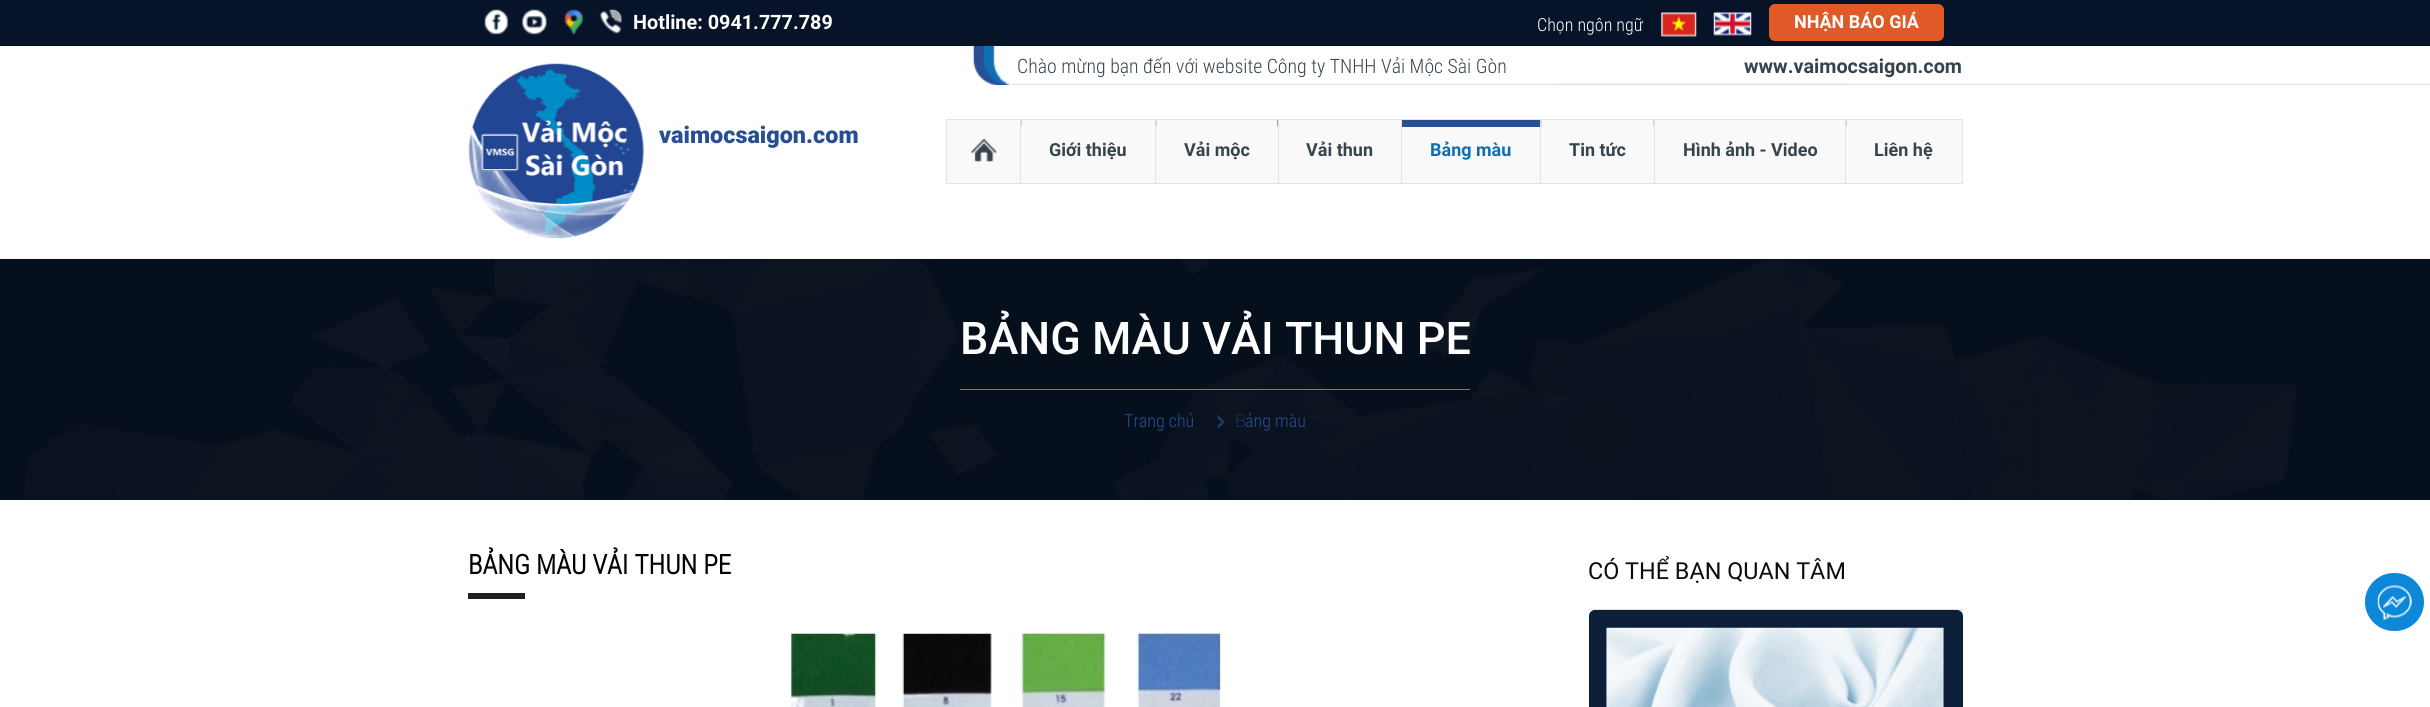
import math
import cairo


def use_color(cr, r, g, b):
  cr.set_source_rgb(r / 255, g / 255, b / 255)

def text(cr, x, y, s, family, size, color, bold=False, italic=False):
  cr.select_font_face(family, cairo.FONT_SLANT_ITALIC if italic else cairo.FONT_SLANT_NORMAL, cairo.FONT_WEIGHT_BOLD if bold else cairo.FONT_WEIGHT_NORMAL)
  cr.set_font_size(size)
  use_color(cr, *color)
  cr.move_to(x, y)
  cr.show_text(s)

def box(cr, x, y, w, h, *color):
  use_color(cr, *color)
  cr.rectangle(x, y, w, h)
  cr.fill()

def round_rect(cr, x, y, w, h, r):
  cr.new_sub_path()
  for i, (u, v) in enumerate([(x + w - r, y + h - r), (x + r, y + h - r), (x + r, y + r), (x + w - r, y + r)]):
    cr.arc(u, v, r, i * math.pi / 2, (i + 1) * math.pi / 2)
  cr.close_path()

def picture(cr, path, x, y, w, h):
  cr.save()
  cr.set_source_surface(cairo.ImageSurface.create_from_png(path), x, y)
  cr.rectangle(x, y, w, h)
  cr.fill()
  cr.restore()

def draw(cr):
  use_color(cr, 255, 255, 255)
  cr.paint()
  box(cr, 0, 258, 2430, 1, 245, 245, 245)
  box(cr, 0, 0, 2430, 46, 6, 19, 41)
  picture(cr, "img_01.png", 484, 9, 24, 26)
  picture(cr, "img_02.png", 521, 9, 26, 26)
  picture(cr, "img_03.png", 564, 9, 19, 26)
  picture(cr, "img_04.png", 599, 9, 23, 25)
  picture(cr, "img_05.png", 1661, 12, 36, 25)
  picture(cr, "img_06.png", 1713, 12, 39, 24)
  use_color(cr, 223, 90, 38)
  round_rect(cr, 1769, 4, 175, 37, 6)
  cr.fill()
  picture(cr, "img_07.png", 1555, 83, 875, 2)
  picture(cr, "img_08.png", 468, 63, 176, 176)
  picture(cr, "img_09.png", 973, 46, 875, 39)
  use_color(cr, 249, 249, 249)
  cr.rectangle(946.5, 119.5, 1016, 64)
  cr.fill_preserve()
  use_color(cr, 227, 227, 227)
  cr.set_line_width(1)
  cr.stroke()
  picture(cr, "img_10.png", 971, 138, 26, 24)
  picture(cr, "img_11.png", 1021, 120, 1, 7)
  box(cr, 1020, 120, 1, 63, 227, 227, 227)
  picture(cr, "img_11.png", 1156, 120, 1, 7)
  box(cr, 1155, 120, 1, 63, 227, 227, 227)
  picture(cr, "img_12.png", 1277, 120, 1, 7)
  box(cr, 1278, 120, 1, 63, 227, 227, 227)
  box(cr, 1401, 120, 139, 7, 40, 79, 148)
  box(cr, 1401, 120, 1, 63, 227, 227, 227)
  picture(cr, "img_11.png", 1541, 120, 1, 7)
  box(cr, 1540, 120, 1, 63, 227, 227, 227)
  picture(cr, "img_11.png", 1653, 120, 1, 7)
  box(cr, 1654, 120, 1, 63, 227, 227, 227)
  picture(cr, "img_11.png", 1846, 120, 1, 7)
  box(cr, 1845, 120, 1, 63, 227, 227, 227)
  picture(cr, "img_13.png", 0, 259, 2430, 241)
  box(cr, 960, 389, 510, 1, 223, 90, 38)
  picture(cr, "img_14.png", 1217, 415, 7, 14)
  box(cr, 468, 593, 57, 6, 32, 32, 32)
  picture(cr, "img_15.png", 789, 631, 432, 76)
  box(cr, 1589, 609, 374, 1, 221, 221, 221)
  use_color(cr, 13, 30, 57)
  round_rect(cr, 1589, 610, 374, 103, 6)
  cr.fill()
  picture(cr, "img_16.png", 1606, 627, 338, 80)
  use_color(cr, 13, 136, 217)
  round_rect(cr, 2365, 573, 59, 58, 29)
  cr.fill()
  picture(cr, "img_17.png", 2377, 585, 35, 35)
  text(cr, 633, 29, "Hotline: 0941.777.789", "Roboto", 19.8, (255, 255, 255), bold=True)
  text(cr, 1537, 31, "Chọn ngôn ngữ", "Roboto Condensed Light", 18, (255, 255, 255))
  text(cr, 1794, 28, "NHẬN BÁO GIÁ", "Roboto", 18, (255, 255, 255), bold=True)
  text(cr, 659, 143, "vaimocsaigon.com", "Roboto Black", 23.4, (40, 78, 148))
  text(cr, 1017, 73, "Chào mừng bạn đến với website Công ty TNHH Vải Mộc Sài Gòn", "Roboto Condensed Light", 19.8, (54, 68, 78))
  text(cr, 1744, 73, "www.vaimocsaigon.com", "Roboto", 19.8, (54, 68, 78), bold=True)
  text(cr, 1049, 156, "Giới thiệu", "Roboto", 18, (54, 68, 78), bold=True)
  text(cr, 1184, 156, "Vải mộc", "Roboto", 18, (54, 68, 78), bold=True)
  text(cr, 1306, 156, "Vải thun", "Roboto", 18, (54, 68, 78), bold=True)
  text(cr, 1430, 156, "Bảng màu", "Roboto", 18, (13, 111, 179), bold=True)
  text(cr, 1569, 156, "Tin tức", "Roboto", 18, (54, 68, 78), bold=True)
  text(cr, 1683, 156, "Hình ảnh - Video", "Roboto", 18, (54, 68, 78), bold=True)
  text(cr, 1874, 156, "Liên hệ", "Roboto", 18, (54, 68, 78), bold=True)
  text(cr, 960, 354, "BẢNG MÀU VẢI THUN PE", "Roboto Medium", 45, (255, 255, 255))
  text(cr, 1124, 427, "Trang chủ", "Roboto Condensed Light", 18, (40, 78, 148))
  text(cr, 1235, 427, "B", "Noto Sans Thin", 18, (40, 78, 148))
  text(cr, 1245, 427, "ảng màu", "Roboto Condensed Light", 18, (40, 78, 148))
  text(cr, 468, 574, "BẢNG MÀU VẢI THUN PE", "Roboto Condensed", 27, (0, 0, 0), bold=True)
  text(cr, 1588, 579, "CÓ THỂ BẠN QUAN TÂM", "Roboto", 23.4, (12, 12, 12))


surface = cairo.ImageSurface(cairo.FORMAT_RGB24, 2430, 707)
cr = cairo.Context(surface)
options = cairo.FontOptions()
options.set_hint_metrics(cairo.HINT_METRICS_OFF)
options.set_hint_style(cairo.HINT_STYLE_NONE)
cr.set_font_options(options)
cr.set_miter_limit(4)
draw(cr)
surface.write_to_png("out.png")
